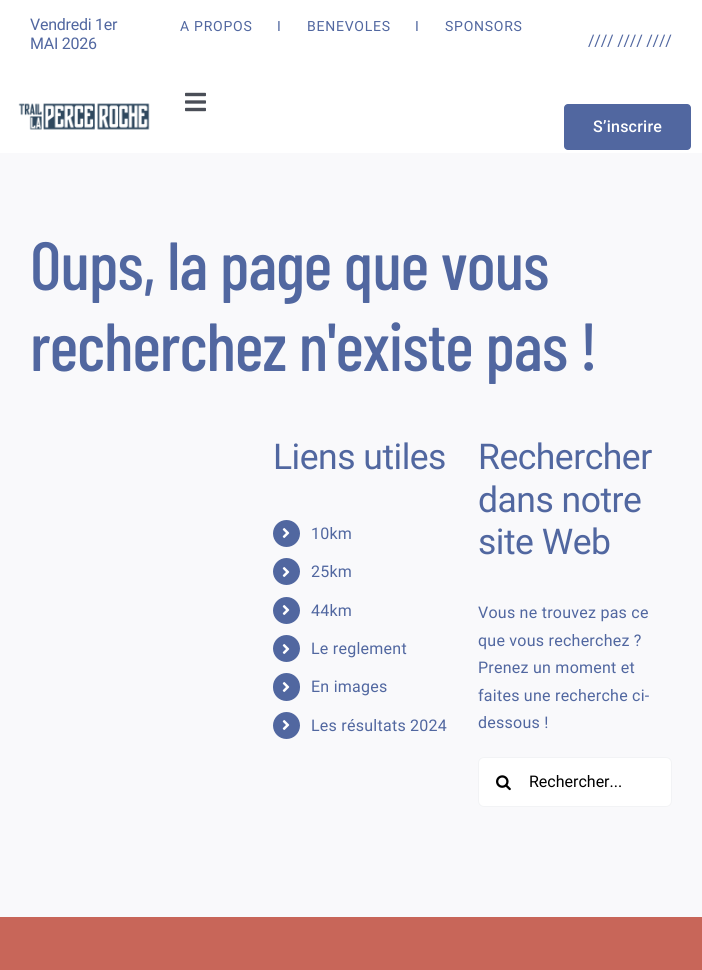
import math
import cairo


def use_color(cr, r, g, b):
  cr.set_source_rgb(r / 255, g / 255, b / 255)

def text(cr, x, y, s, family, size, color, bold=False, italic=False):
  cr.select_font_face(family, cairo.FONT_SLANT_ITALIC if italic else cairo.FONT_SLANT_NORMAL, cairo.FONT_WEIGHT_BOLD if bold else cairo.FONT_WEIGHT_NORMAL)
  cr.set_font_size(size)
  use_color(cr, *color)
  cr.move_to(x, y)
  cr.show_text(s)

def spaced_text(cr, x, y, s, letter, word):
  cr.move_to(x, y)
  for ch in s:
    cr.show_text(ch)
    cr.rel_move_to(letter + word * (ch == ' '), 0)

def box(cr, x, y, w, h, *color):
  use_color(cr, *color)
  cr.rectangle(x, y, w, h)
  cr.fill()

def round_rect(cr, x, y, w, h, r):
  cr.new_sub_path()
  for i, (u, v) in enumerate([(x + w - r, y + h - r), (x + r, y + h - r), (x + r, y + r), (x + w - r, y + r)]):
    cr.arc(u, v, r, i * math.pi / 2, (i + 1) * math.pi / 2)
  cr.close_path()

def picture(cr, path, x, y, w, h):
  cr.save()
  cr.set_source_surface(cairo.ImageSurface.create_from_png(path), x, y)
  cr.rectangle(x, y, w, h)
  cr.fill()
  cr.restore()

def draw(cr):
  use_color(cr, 249, 249, 251)
  cr.paint()
  box(cr, 0, 0, 702, 153, 255, 255, 255)
  picture(cr, "img_01.png", 18, 103, 132, 27)
  picture(cr, "img_02.png", 185, 92, 21, 20)
  use_color(cr, 81, 103, 160)
  round_rect(cr, 564, 104, 127, 46, 4)
  cr.fill()
  cr.arc(286.5, 533.5, 13.5, 0, 2 * math.pi)
  cr.fill()
  picture(cr, "img_03.png", 282, 528, 8, 10)
  cr.arc(286.5, 571.5, 13.5, 0, 2 * math.pi)
  cr.fill()
  picture(cr, "img_03.png", 282, 567, 8, 10)
  cr.arc(286.5, 610.5, 13.5, 0, 2 * math.pi)
  cr.fill()
  picture(cr, "img_03.png", 282, 605, 8, 10)
  cr.arc(286.5, 648.5, 13.5, 0, 2 * math.pi)
  cr.fill()
  picture(cr, "img_03.png", 282, 644, 8, 10)
  round_rect(cr, 273, 673, 27, 28, 13.5)
  cr.fill()
  picture(cr, "img_03.png", 282, 682, 8, 10)
  cr.arc(286.5, 725.5, 13.5, 0, 2 * math.pi)
  cr.fill()
  picture(cr, "img_03.png", 282, 720, 8, 10)
  use_color(cr, 255, 255, 255)
  round_rect(cr, 478.5, 757.5, 193, 49, 5.5)
  cr.fill_preserve()
  use_color(cr, 242, 243, 245)
  cr.set_line_width(1)
  cr.stroke()
  picture(cr, "img_04.png", 496, 775, 15, 16)
  box(cr, 0, 917, 702, 53, 200, 102, 89)
  cr.select_font_face("Roboto")
  cr.set_font_size(16)
  use_color(cr, 81, 103, 160)
  spaced_text(cr, 30, 30, "Vendredi 1er", -0.25, 0)
  spaced_text(cr, 30, 49, "MAI 2026", -0.25, 0)
  cr.set_font_size(14)
  spaced_text(cr, 180, 31, "A PROPOS", 0.75, 0)
  spaced_text(cr, 277, 31, "I", 0.75, 0)
  spaced_text(cr, 307, 31, "BENEVOLES", 0.75, 0)
  spaced_text(cr, 415, 31, "I", 0.75, 0)
  spaced_text(cr, 445, 31, "SPONSORS", 0.75, 0)
  cr.set_font_size(16)
  spaced_text(cr, 588, 46, "//// //// ////", -0.25, 0)
  cr.select_font_face("Roboto Medium")
  use_color(cr, 255, 255, 255)
  spaced_text(cr, 593, 132, "S’inscrire", 0.25, 0)
  cr.select_font_face("Barlow Condensed Medium")
  cr.set_font_size(68)
  use_color(cr, 81, 103, 160)
  spaced_text(cr, 30, 290, "Oups, la page que vous", -1, 0)
  spaced_text(cr, 30, 371, "recherchez n'existe pas !", -1, 0)
  cr.select_font_face("Roboto")
  cr.set_font_size(35.5)
  spaced_text(cr, 273, 469, "Liens utiles", -0.5, 0)
  cr.set_font_size(16)
  spaced_text(cr, 311, 539, "10km", 0.25, 0)
  spaced_text(cr, 311, 577, "25km", 0.25, 0)
  spaced_text(cr, 311, 616, "44km", 0.25, 0)
  spaced_text(cr, 311, 654, "Le reglement", 0.25, 0)
  spaced_text(cr, 311, 692, "En images", 0.25, 0)
  spaced_text(cr, 311, 731, "Les résultats 2024", 0.25, 0)
  cr.set_font_size(35.5)
  spaced_text(cr, 478, 469, "Rechercher", -0.5, 0)
  spaced_text(cr, 478, 512, "dans notre", -0.5, 0)
  spaced_text(cr, 478, 554, "site Web", -0.5, 0)
  cr.set_font_size(16)
  spaced_text(cr, 478, 618, "Vous ne trouvez pas ce", 0.25, 0)
  spaced_text(cr, 478, 646, "que vous recherchez ?", 0.25, 0)
  spaced_text(cr, 478, 673, "Prenez un moment et", 0.25, 0)
  spaced_text(cr, 478, 701, "faites une recherche ci-", 0.25, 0)
  spaced_text(cr, 478, 728, "dessous !", 0.25, 0)
  text(cr, 529, 787, "Rechercher...", "Roboto", 16, (0, 0, 0))


surface = cairo.ImageSurface(cairo.FORMAT_RGB24, 702, 970)
cr = cairo.Context(surface)
options = cairo.FontOptions()
options.set_hint_metrics(cairo.HINT_METRICS_OFF)
options.set_hint_style(cairo.HINT_STYLE_NONE)
cr.set_font_options(options)
cr.set_miter_limit(4)
draw(cr)
surface.write_to_png("out.png")
